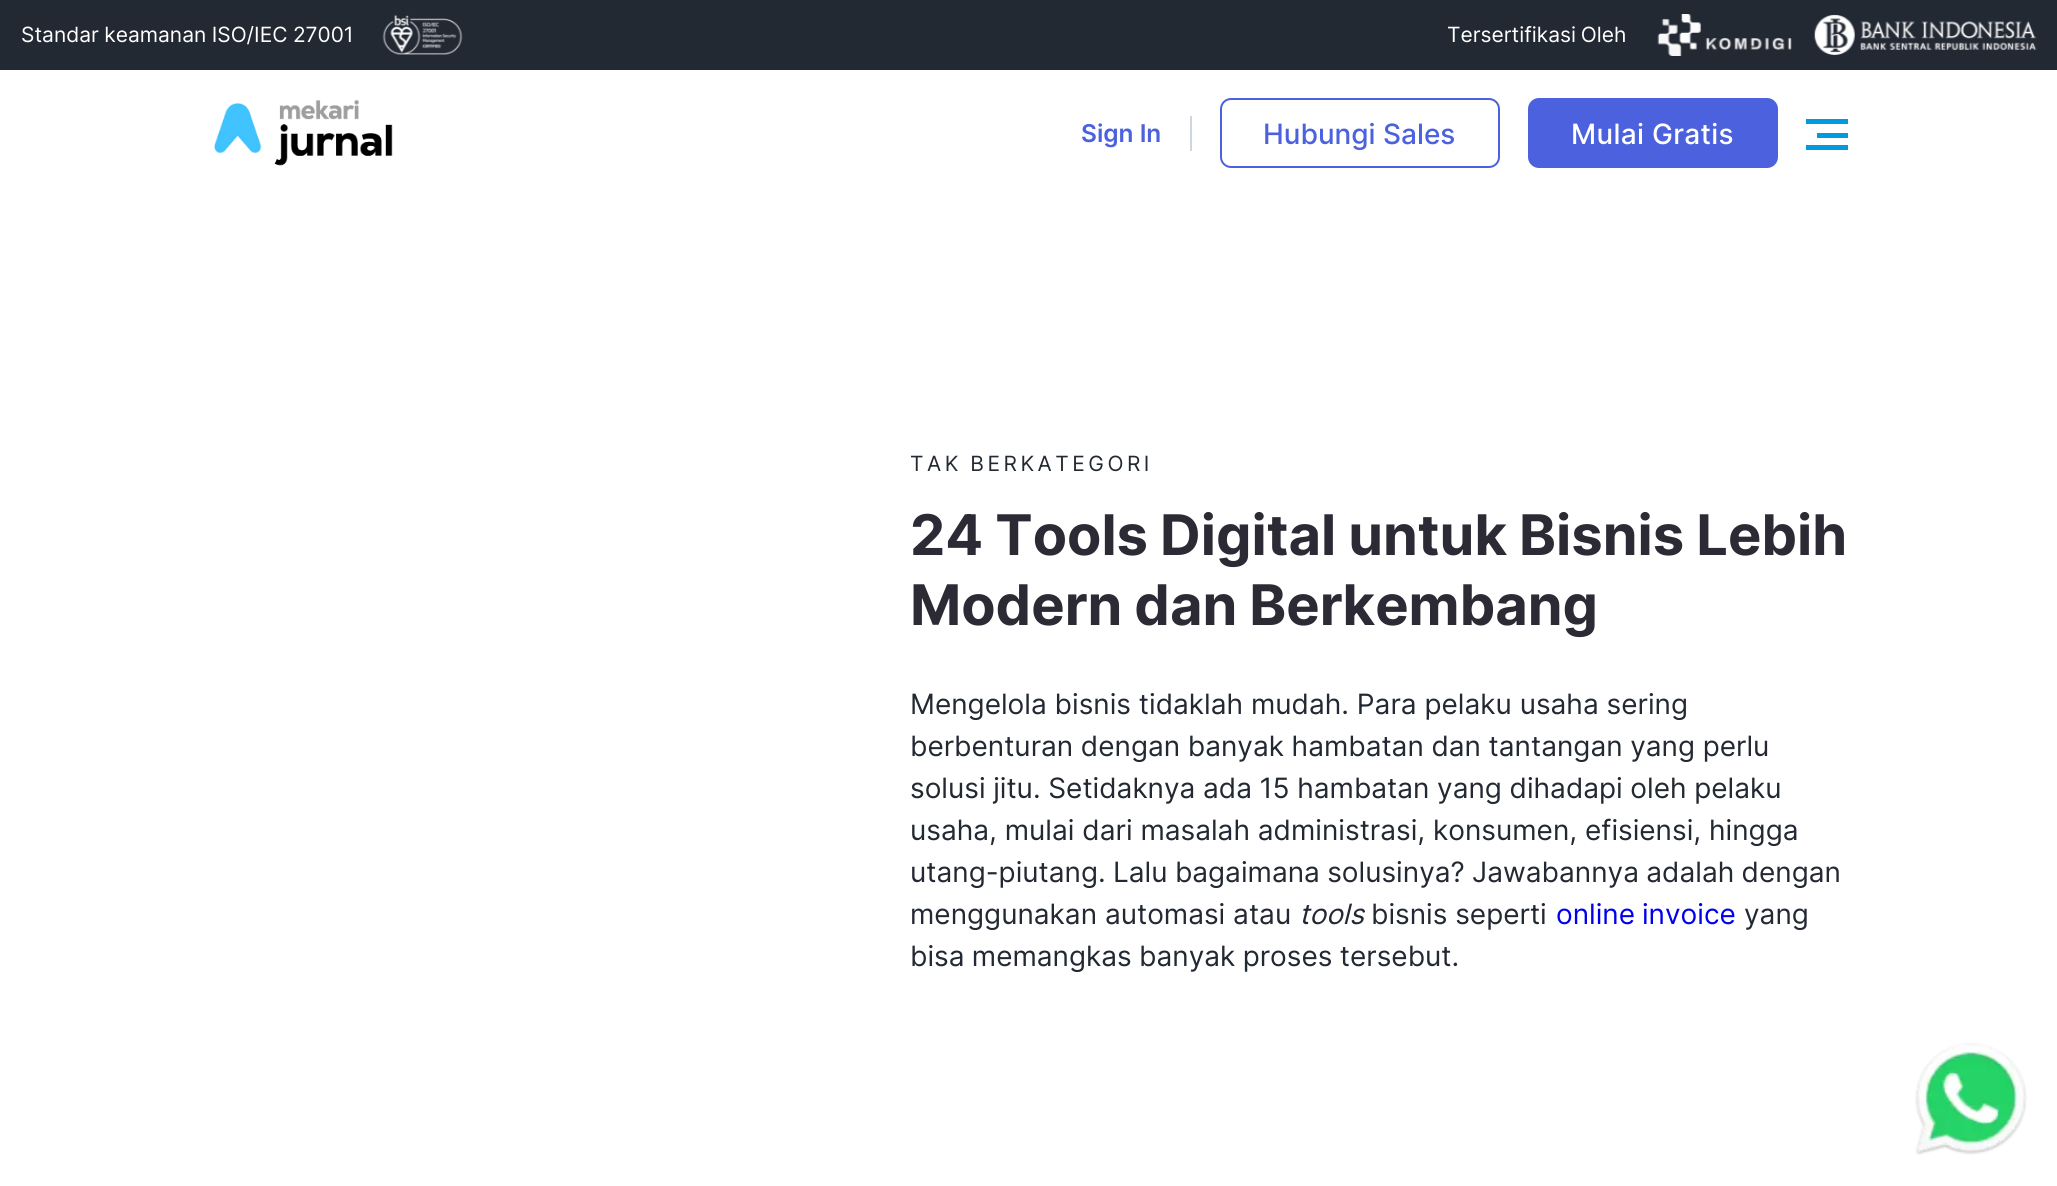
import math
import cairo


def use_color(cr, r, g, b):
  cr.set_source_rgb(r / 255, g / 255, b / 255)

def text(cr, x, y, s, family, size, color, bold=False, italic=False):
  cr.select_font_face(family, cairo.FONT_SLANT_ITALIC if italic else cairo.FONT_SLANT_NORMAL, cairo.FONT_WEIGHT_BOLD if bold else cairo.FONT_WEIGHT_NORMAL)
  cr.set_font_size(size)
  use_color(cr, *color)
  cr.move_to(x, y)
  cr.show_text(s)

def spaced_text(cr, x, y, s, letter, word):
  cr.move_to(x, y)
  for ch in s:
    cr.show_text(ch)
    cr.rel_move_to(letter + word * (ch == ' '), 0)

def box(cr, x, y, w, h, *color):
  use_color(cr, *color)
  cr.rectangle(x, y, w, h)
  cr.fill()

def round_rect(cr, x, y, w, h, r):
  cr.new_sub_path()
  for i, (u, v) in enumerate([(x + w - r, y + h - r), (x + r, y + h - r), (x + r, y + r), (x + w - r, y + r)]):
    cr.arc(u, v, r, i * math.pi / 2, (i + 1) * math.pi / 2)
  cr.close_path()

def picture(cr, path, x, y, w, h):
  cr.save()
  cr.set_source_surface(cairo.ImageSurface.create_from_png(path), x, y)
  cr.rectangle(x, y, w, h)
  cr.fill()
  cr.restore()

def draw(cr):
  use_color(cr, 255, 255, 255)
  cr.paint()
  box(cr, 0, 0, 2057, 70, 35, 41, 51)
  picture(cr, "img_01.png", 382, 15, 81, 40)
  picture(cr, "img_02.png", 1657, 14, 135, 42)
  picture(cr, "img_03.png", 1814, 14, 223, 41)
  picture(cr, "img_04.png", 214, 99, 179, 67)
  box(cr, 1190, 116, 2, 35, 208, 214, 221)
  round_rect(cr, 1221, 99, 278, 68, 10)
  use_color(cr, 75, 97, 221)
  cr.stroke()
  round_rect(cr, 1529, 99, 248, 68, 10)
  cr.fill_preserve()
  cr.stroke()
  box(cr, 1806, 119, 42, 5, 0, 155, 222)
  box(cr, 1817, 133, 31, 5, 0, 155, 222)
  box(cr, 1806, 145, 42, 5, 0, 155, 222)
  picture(cr, "img_05.png", 1915, 1042, 112, 113)
  cr.select_font_face("Inter")
  cr.set_font_size(21)
  use_color(cr, 255, 255, 255)
  spaced_text(cr, 21, 42, "Standar keamanan ISO/IEC 27001", 0, -0.5)
  spaced_text(cr, 1447, 42, "Tersertifikasi Oleh", 0, -1)
  text(cr, 1081, 142, "Sign In", "Inter SemiBold", 24.5, (75, 97, 221))
  text(cr, 1263, 144, "Hubungi Sales", "Inter Medium", 28, (75, 97, 221))
  use_color(cr, 255, 255, 255)
  spaced_text(cr, 1571, 144, "Mulai Gratis", 0.3, 0)
  cr.select_font_face("Inter")
  cr.set_font_size(21)
  use_color(cr, 35, 41, 51)
  spaced_text(cr, 910, 471, "TAK BERKATEGORI", 3.5, -1)
  cr.select_font_face("Inter", cairo.FONT_SLANT_NORMAL, cairo.FONT_WEIGHT_BOLD)
  cr.set_font_size(56)
  use_color(cr, 43, 42, 53)
  spaced_text(cr, 910, 555, "24 Tools Digital untuk Bisnis Lebih", 0, -1)
  spaced_text(cr, 910, 625, "Modern dan Berkembang", 0, -1)
  text(cr, 910, 714, "Mengelola bisnis tidaklah mudah. Para pelaku usaha sering", "Inter", 28, (35, 41, 51))
  spaced_text(cr, 910, 756, "berbenturan dengan banyak hambatan dan tantangan yang perlu", 0, -0.25)
  spaced_text(cr, 910, 798, "solusi jitu. Setidaknya ada 15 hambatan yang dihadapi oleh pelaku", 0, -0.25)
  text(cr, 910, 840, "usaha, mulai dari masalah administrasi, konsumen, efisiensi, hingga", "Inter", 28, (35, 41, 51))
  spaced_text(cr, 910, 882, "utang-piutang. Lalu bagaimana solusinya? Jawabannya adalah dengan", 0, -0.5)
  text(cr, 910, 924, "menggunakan automasi atau", "Inter", 28, (35, 41, 51))
  text(cr, 1299, 924, "tools", "Inter", 28, (35, 41, 51), italic=True)
  text(cr, 1371, 924, "bisnis seperti", "Inter", 28, (35, 41, 51))
  use_color(cr, 0, 0, 238)
  spaced_text(cr, 1556, 924, "online invoice", 0, -1)
  text(cr, 1744, 924, "yang", "Inter", 28, (35, 41, 51))
  spaced_text(cr, 910, 966, "bisa memangkas banyak proses tersebut.", 0, -0.5)


surface = cairo.ImageSurface(cairo.FORMAT_RGB24, 2057, 1186)
cr = cairo.Context(surface)
options = cairo.FontOptions()
options.set_hint_metrics(cairo.HINT_METRICS_OFF)
options.set_hint_style(cairo.HINT_STYLE_NONE)
cr.set_font_options(options)
cr.set_miter_limit(4)
draw(cr)
surface.write_to_png("out.png")
